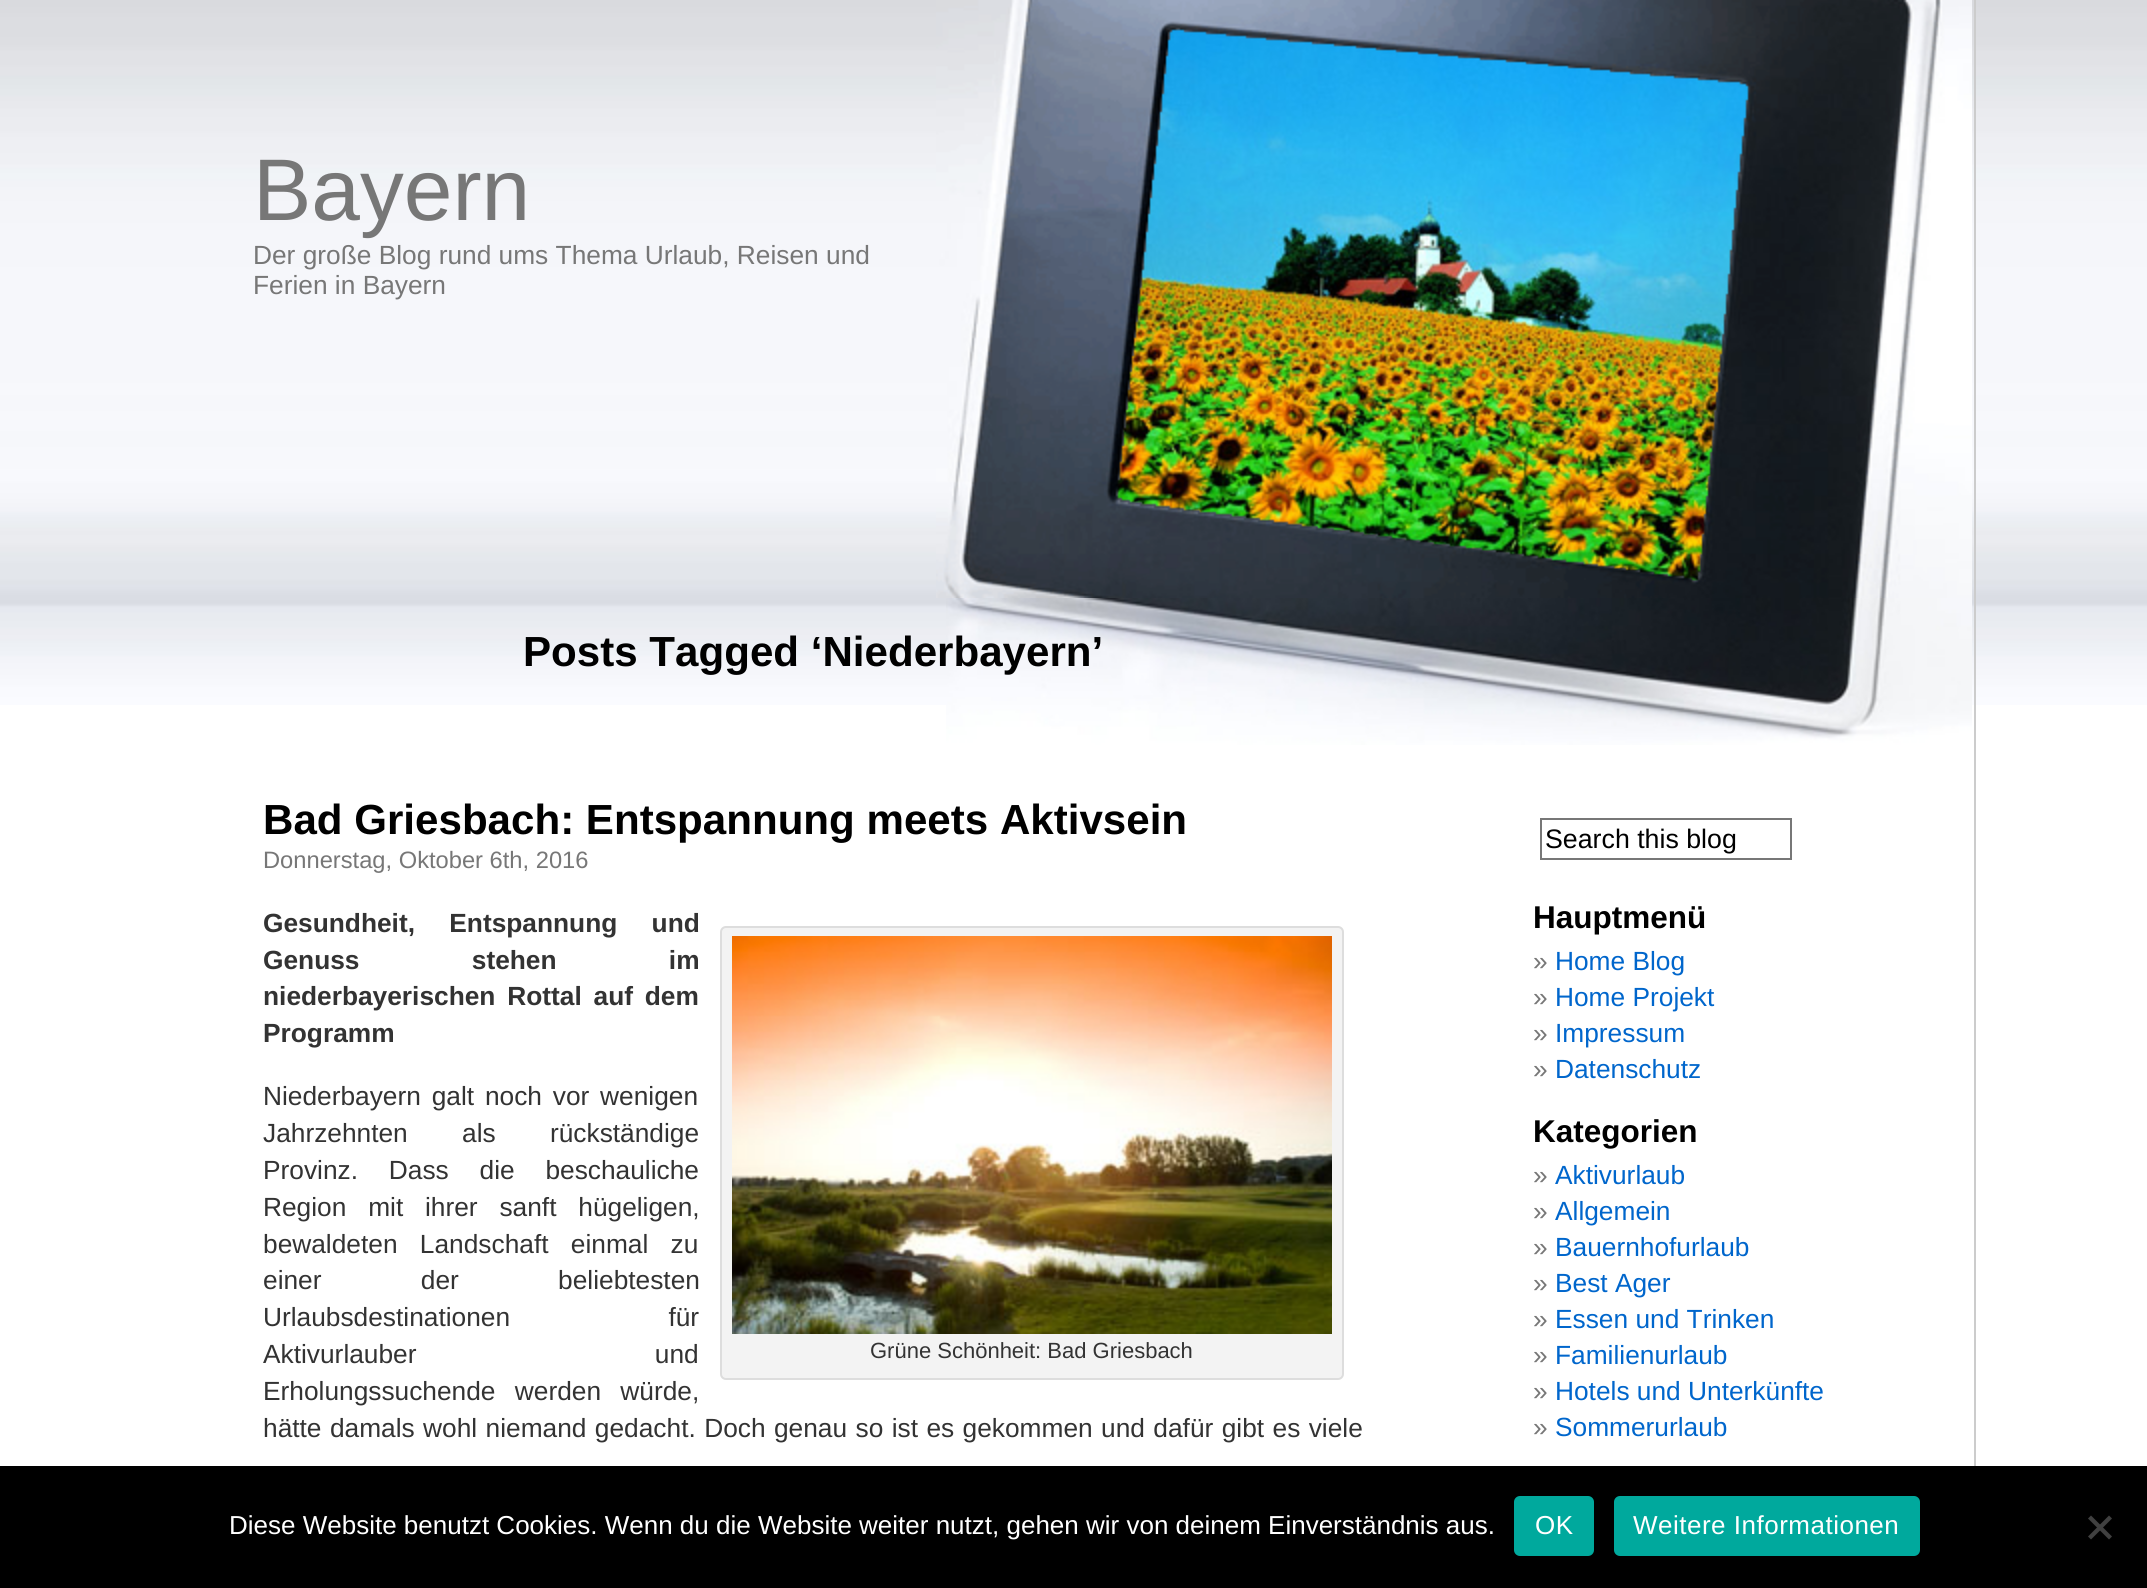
import math
import cairo


def use_color(cr, r, g, b):
  cr.set_source_rgb(r / 255, g / 255, b / 255)

def text(cr, x, y, s, family, size, color, bold=False, italic=False):
  cr.select_font_face(family, cairo.FONT_SLANT_ITALIC if italic else cairo.FONT_SLANT_NORMAL, cairo.FONT_WEIGHT_BOLD if bold else cairo.FONT_WEIGHT_NORMAL)
  cr.set_font_size(size)
  use_color(cr, *color)
  cr.move_to(x, y)
  cr.show_text(s)

def spaced_text(cr, x, y, s, letter, word):
  cr.move_to(x, y)
  for ch in s:
    cr.show_text(ch)
    cr.rel_move_to(letter + word * (ch == ' '), 0)

def box(cr, x, y, w, h, *color):
  use_color(cr, *color)
  cr.rectangle(x, y, w, h)
  cr.fill()

def round_rect(cr, x, y, w, h, r):
  cr.new_sub_path()
  for i, (u, v) in enumerate([(x + w - r, y + h - r), (x + r, y + h - r), (x + r, y + r), (x + w - r, y + r)]):
    cr.arc(u, v, r, i * math.pi / 2, (i + 1) * math.pi / 2)
  cr.close_path()

def picture(cr, path, x, y, w, h):
  cr.save()
  cr.set_source_surface(cairo.ImageSurface.create_from_png(path), x, y)
  cr.rectangle(x, y, w, h)
  cr.fill()
  cr.restore()

def draw(cr):
  use_color(cr, 255, 255, 255)
  cr.paint()
  picture(cr, "img_01.png", 0, 0, 2147, 705)
  box(cr, 1974, 0, 2, 1466, 204, 204, 204)
  picture(cr, "img_02.png", 1117, 29, 632, 552)
  picture(cr, "img_03.png", 936, 0, 1036, 598)
  use_color(cr, 243, 243, 243)
  round_rect(cr, 721, 927, 622, 452, 5)
  cr.fill_preserve()
  use_color(cr, 221, 221, 221)
  cr.stroke()
  picture(cr, "img_04.png", 732, 936, 600, 398)
  picture(cr, "img_05.png", 946, 598, 1026, 147)
  cr.rectangle(1541, 819, 250, 40)
  use_color(cr, 119, 119, 119)
  cr.stroke()
  box(cr, 0, 1466, 2147, 122, 0, 0, 0)
  use_color(cr, 0, 169, 157)
  round_rect(cr, 1514, 1496, 80, 60, 6)
  cr.fill()
  round_rect(cr, 1614, 1496, 306, 60, 6)
  cr.fill()
  use_color(cr, 64, 64, 64)
  cr.new_path()
  cr.move_to(2109, 1515.5)
  cr.line_to(2112, 1518.5)
  cr.line_to(2091, 1539.5)
  cr.line_to(2088, 1536.5)
  cr.close_path()
  cr.fill()
  cr.new_path()
  cr.move_to(2088, 1518.5)
  cr.line_to(2091, 1515.5)
  cr.line_to(2112, 1536.5)
  cr.line_to(2109, 1539.5)
  cr.close_path()
  cr.fill()
  text(cr, 253, 220, "Bayern", "Liberation Sans", 87.5, (119, 119, 119))
  text(cr, 253, 264, "Der große Blog rund ums Thema Urlaub, Reisen und", "Liberation Sans", 26.3, (119, 119, 119))
  text(cr, 253, 294, "Ferien in Bayern", "Liberation Sans", 26.3, (119, 119, 119))
  text(cr, 523, 666, "Posts Tagged ‘Niederbayern’", "Liberation Sans", 42.1, (0, 0, 0), bold=True)
  text(cr, 263, 834, "Bad Griesbach: Entspannung meets Aktivsein", "Liberation Sans", 42.1, (0, 0, 0), bold=True)
  text(cr, 263, 868, "Donnerstag, Oktober 6th, 2016", "Liberation Sans", 23.7, (119, 119, 119))
  cr.select_font_face("Liberation Sans", cairo.FONT_SLANT_NORMAL, cairo.FONT_WEIGHT_BOLD)
  cr.set_font_size(26.3)
  use_color(cr, 51, 51, 51)
  spaced_text(cr, 263, 932, "Gesundheit, Entspannung und", 0, 27)
  spaced_text(cr, 263, 969, "Genuss stehen im", 0, 105)
  spaced_text(cr, 263, 1005, "niederbayerischen Rottal auf dem", 0, 4.5)
  text(cr, 263, 1042, "Programm", "Liberation Sans", 26.3, (51, 51, 51), bold=True)
  cr.select_font_face("Liberation Sans")
  spaced_text(cr, 263, 1105, "Niederbayern galt noch vor wenigen", 0, 3.5)
  spaced_text(cr, 263, 1142, "Jahrzehnten als rückständige", 0, 47)
  spaced_text(cr, 263, 1179, "Provinz. Dass die beschauliche", 0, 23.5)
  spaced_text(cr, 263, 1216, "Region mit ihrer sanft hügeligen,", 0, 14.5)
  spaced_text(cr, 263, 1253, "bewaldeten Landschaft einmal zu", 0, 15)
  spaced_text(cr, 263, 1289, "einer der beliebtesten", 0, 92)
  spaced_text(cr, 263, 1326, "Urlaubsdestinationen für", 0, 151)
  spaced_text(cr, 263, 1363, "Aktivurlauber und", 0, 231)
  spaced_text(cr, 263, 1400, "Erholungssuchende werden würde,", 0, 12)
  spaced_text(cr, 263, 1437, "hätte damals wohl niemand gedacht. Doch genau so ist es gekommen und dafür gibt es viele", 0, 1.1)
  text(cr, 870, 1358, "Grüne Schönheit: Bad Griesbach", "Liberation Sans", 22, (51, 51, 51))
  text(cr, 1545, 848, "Search this blog", "Liberation Sans", 26.75, (0, 0, 0))
  text(cr, 1533, 928, "Hauptmenü", "Liberation Sans", 31.5, (0, 0, 0), bold=True)
  text(cr, 1533, 970, "»", "Liberation Sans", 26.3, (119, 119, 119))
  text(cr, 1555, 970, "Home Blog", "Liberation Sans", 26.3, (0, 102, 204))
  text(cr, 1533, 1006, "»", "Liberation Sans", 26.3, (119, 119, 119))
  text(cr, 1555, 1006, "Home Projekt", "Liberation Sans", 26.3, (0, 102, 204))
  text(cr, 1533, 1042, "»", "Liberation Sans", 26.3, (119, 119, 119))
  text(cr, 1555, 1042, "Impressum", "Liberation Sans", 26.3, (0, 102, 204))
  text(cr, 1533, 1078, "»", "Liberation Sans", 26.3, (119, 119, 119))
  text(cr, 1555, 1078, "Datenschutz", "Liberation Sans", 26.3, (0, 102, 204))
  text(cr, 1533, 1142, "Kategorien", "Liberation Sans", 31.5, (0, 0, 0), bold=True)
  text(cr, 1533, 1184, "»", "Liberation Sans", 26.3, (119, 119, 119))
  text(cr, 1555, 1184, "Aktivurlaub", "Liberation Sans", 26.3, (0, 102, 204))
  text(cr, 1533, 1220, "»", "Liberation Sans", 26.3, (119, 119, 119))
  text(cr, 1555, 1220, "Allgemein", "Liberation Sans", 26.3, (0, 102, 204))
  text(cr, 1533, 1256, "»", "Liberation Sans", 26.3, (119, 119, 119))
  text(cr, 1555, 1256, "Bauernhofurlaub", "Liberation Sans", 26.3, (0, 102, 204))
  text(cr, 1533, 1292, "»", "Liberation Sans", 26.3, (119, 119, 119))
  text(cr, 1555, 1292, "Best Ager", "Liberation Sans", 26.3, (0, 102, 204))
  text(cr, 1533, 1328, "»", "Liberation Sans", 26.3, (119, 119, 119))
  text(cr, 1555, 1328, "Essen und Trinken", "Liberation Sans", 26.3, (0, 102, 204))
  text(cr, 1533, 1364, "»", "Liberation Sans", 26.3, (119, 119, 119))
  text(cr, 1555, 1364, "Familienurlaub", "Liberation Sans", 26.3, (0, 102, 204))
  text(cr, 1533, 1400, "»", "Liberation Sans", 26.3, (119, 119, 119))
  text(cr, 1555, 1400, "Hotels und Unterkünfte", "Liberation Sans", 26.3, (0, 102, 204))
  text(cr, 1533, 1436, "»", "Liberation Sans", 26.3, (119, 119, 119))
  text(cr, 1555, 1436, "Sommerurlaub", "Liberation Sans", 26.3, (0, 102, 204))
  text(cr, 229, 1534, "Diese Website benutzt Cookies. Wenn du die Website weiter nutzt, gehen wir von deinem Einverständnis aus.", "Liberation Sans", 26, (255, 255, 255))
  spaced_text(cr, 1535, 1534, "OK", 0.5, 0)
  spaced_text(cr, 1633, 1534, "Weitere Informationen", 0.5, 0)


surface = cairo.ImageSurface(cairo.FORMAT_RGB24, 2147, 1588)
cr = cairo.Context(surface)
options = cairo.FontOptions()
options.set_hint_metrics(cairo.HINT_METRICS_OFF)
options.set_hint_style(cairo.HINT_STYLE_NONE)
cr.set_font_options(options)
cr.set_miter_limit(4)
draw(cr)
surface.write_to_png("out.png")
